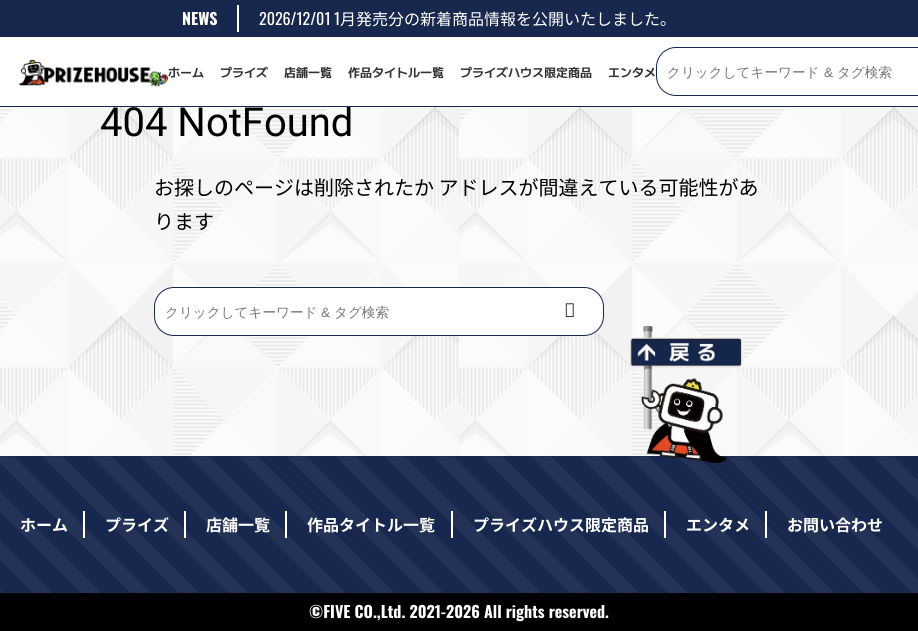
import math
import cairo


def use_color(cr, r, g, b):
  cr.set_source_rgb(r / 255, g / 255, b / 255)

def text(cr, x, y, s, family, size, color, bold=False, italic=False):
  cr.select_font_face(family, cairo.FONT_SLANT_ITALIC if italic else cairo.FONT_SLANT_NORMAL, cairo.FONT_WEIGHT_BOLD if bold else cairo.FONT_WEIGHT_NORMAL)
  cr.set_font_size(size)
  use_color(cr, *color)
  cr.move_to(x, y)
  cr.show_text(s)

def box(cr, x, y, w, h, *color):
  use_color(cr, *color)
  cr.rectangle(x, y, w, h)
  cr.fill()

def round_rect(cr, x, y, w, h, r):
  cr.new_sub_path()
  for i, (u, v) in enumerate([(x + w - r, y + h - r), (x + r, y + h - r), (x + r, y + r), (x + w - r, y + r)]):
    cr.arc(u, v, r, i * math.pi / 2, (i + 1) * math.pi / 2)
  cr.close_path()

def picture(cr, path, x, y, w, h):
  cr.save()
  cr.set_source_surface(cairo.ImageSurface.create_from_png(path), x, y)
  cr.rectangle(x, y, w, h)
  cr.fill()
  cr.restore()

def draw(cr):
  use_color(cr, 250, 250, 250)
  cr.paint()
  box(cr, 0, 37, 918, 69, 255, 255, 255)
  box(cr, 0, 0, 918, 37, 23, 39, 77)
  box(cr, 237, 5, 2, 27, 255, 255, 255)
  picture(cr, "img_01.png", 19, 59, 149, 28)
  round_rect(cr, 656.5, 47.5, 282, 48, 19.5)
  use_color(cr, 23, 39, 77)
  cr.set_line_width(1)
  cr.stroke()
  picture(cr, "img_02.png", 0, 107, 918, 349)
  use_color(cr, 255, 255, 255)
  round_rect(cr, 154.5, 287.5, 449, 48, 19.5)
  cr.fill_preserve()
  use_color(cr, 23, 39, 77)
  cr.stroke()
  picture(cr, "img_03.png", 565, 303, 9, 14)
  box(cr, 0, 456, 918, 137, 23, 39, 77)
  picture(cr, "img_04.png", 0, 456, 918, 137)
  picture(cr, "img_05.png", 630, 326, 112, 137)
  box(cr, 83, 511, 2, 27, 255, 255, 255)
  box(cr, 184, 511, 2, 27, 255, 255, 255)
  box(cr, 285, 511, 2, 27, 255, 255, 255)
  box(cr, 451, 511, 2, 27, 255, 255, 255)
  box(cr, 664, 511, 2, 27, 255, 255, 255)
  box(cr, 765, 511, 2, 27, 255, 255, 255)
  box(cr, 0, 593, 918, 38, 0, 0, 0)
  text(cr, 182, 25, "NEWS", "Oswald", 16, (255, 255, 255), bold=True)
  text(cr, 259, 25, "2026/12/01 1", "Oswald", 16, (255, 255, 255))
  text(cr, 340, 25, "月発売分の新着商品情報を公開いたしました。", "Noto Sans JP", 16, (255, 255, 255))
  text(cr, 168, 77, "ホーム", "M PLUS 1", 12, (51, 51, 51), bold=True)
  text(cr, 220, 77, "プライズ", "M PLUS 1", 12, (51, 51, 51), bold=True)
  text(cr, 284, 77, "店舗一覧", "M PLUS 1", 12, (51, 51, 51), bold=True)
  text(cr, 348, 77, "作品タイトル一覧", "M PLUS 1", 12, (51, 51, 51), bold=True)
  text(cr, 460, 77, "プライズハウス限定商品", "M PLUS 1", 12, (51, 51, 51), bold=True)
  text(cr, 608, 77, "エンタメ", "M PLUS 1", 12, (51, 51, 51), bold=True)
  text(cr, 667, 77, "クリックしてキーワード", "WenQuanYi Zen Hei Medium", 13.6, (117, 117, 117))
  text(cr, 824, 77, "&", "Liberation Sans", 13.6, (117, 117, 117))
  text(cr, 837, 77, "タグ検索", "WenQuanYi Zen Hei Medium", 13.6, (117, 117, 117))
  text(cr, 100, 136, "404 NotFound", "Roboto", 40, (0, 0, 0))
  box(cr, 0, 106, 918, 1, 23, 39, 77)
  text(cr, 154, 195, "お探しのページは削除されたか アドレスが間違えている可能性があ", "Noto Sans JP", 20, (0, 0, 0))
  text(cr, 154, 229, "ります", "Noto Sans JP", 20, (0, 0, 0))
  text(cr, 165, 317, "クリックしてキーワード", "WenQuanYi Zen Hei Medium", 13.6, (117, 117, 117))
  text(cr, 321, 317, "&", "Liberation Sans", 13.6, (117, 117, 117))
  text(cr, 334, 317, "タグ検索", "WenQuanYi Zen Hei Medium", 13.6, (117, 117, 117))
  text(cr, 20, 531, "ホーム", "Noto Sans JP", 16, (255, 255, 255), bold=True)
  text(cr, 105, 531, "プライズ", "Noto Sans JP", 16, (255, 255, 255), bold=True)
  text(cr, 206, 531, "店舗一覧", "Noto Sans JP", 16, (255, 255, 255), bold=True)
  text(cr, 307, 531, "作品タイトル一覧", "Noto Sans JP", 16, (255, 255, 255), bold=True)
  text(cr, 473, 531, "プライズハウス限定商品", "Noto Sans JP", 16, (255, 255, 255), bold=True)
  text(cr, 686, 531, "エンタメ", "Noto Sans JP", 16, (255, 255, 255), bold=True)
  text(cr, 787, 531, "お問い合わせ", "Noto Sans JP", 16, (255, 255, 255), bold=True)
  text(cr, 309, 618, "©FIVE CO.,Ltd. 2021-2026 All rights reserved.", "Oswald", 16, (255, 255, 255), bold=True)


surface = cairo.ImageSurface(cairo.FORMAT_RGB24, 918, 631)
cr = cairo.Context(surface)
options = cairo.FontOptions()
options.set_hint_metrics(cairo.HINT_METRICS_OFF)
options.set_hint_style(cairo.HINT_STYLE_NONE)
cr.set_font_options(options)
cr.set_miter_limit(4)
draw(cr)
surface.write_to_png("out.png")
